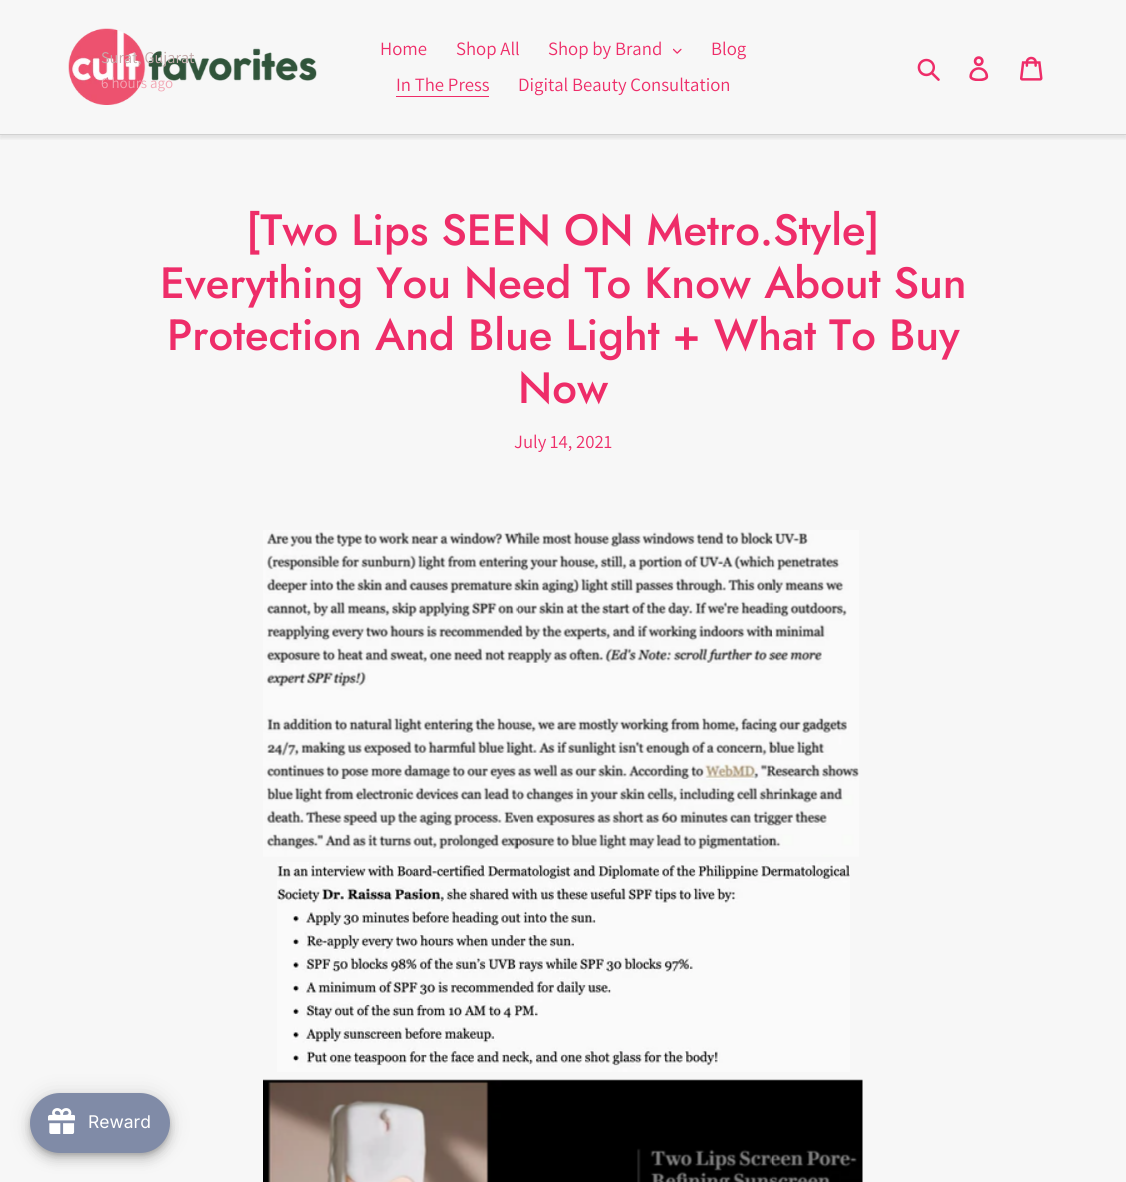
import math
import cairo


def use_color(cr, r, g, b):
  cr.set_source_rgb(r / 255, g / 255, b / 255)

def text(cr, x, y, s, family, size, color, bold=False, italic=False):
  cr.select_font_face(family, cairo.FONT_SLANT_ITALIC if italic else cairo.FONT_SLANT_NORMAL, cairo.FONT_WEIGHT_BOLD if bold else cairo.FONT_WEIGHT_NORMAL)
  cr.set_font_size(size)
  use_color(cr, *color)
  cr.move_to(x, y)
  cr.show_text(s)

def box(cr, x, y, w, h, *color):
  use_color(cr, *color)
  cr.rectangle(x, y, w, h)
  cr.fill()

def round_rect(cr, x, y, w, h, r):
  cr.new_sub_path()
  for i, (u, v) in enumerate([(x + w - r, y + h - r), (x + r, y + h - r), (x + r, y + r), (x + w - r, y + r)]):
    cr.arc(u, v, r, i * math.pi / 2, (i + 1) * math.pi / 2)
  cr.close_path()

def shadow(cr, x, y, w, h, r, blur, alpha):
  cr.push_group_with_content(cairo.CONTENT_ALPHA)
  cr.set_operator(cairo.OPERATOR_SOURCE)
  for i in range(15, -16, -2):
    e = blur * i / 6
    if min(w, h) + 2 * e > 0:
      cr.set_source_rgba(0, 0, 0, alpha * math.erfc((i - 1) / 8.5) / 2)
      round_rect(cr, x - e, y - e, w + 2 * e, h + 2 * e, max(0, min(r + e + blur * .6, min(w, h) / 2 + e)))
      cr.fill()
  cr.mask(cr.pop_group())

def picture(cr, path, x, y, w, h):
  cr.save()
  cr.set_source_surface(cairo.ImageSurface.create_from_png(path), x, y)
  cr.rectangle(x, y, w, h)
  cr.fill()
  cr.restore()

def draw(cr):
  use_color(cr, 247, 247, 247)
  cr.paint()
  cr.save()
  cr.rectangle(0, 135, 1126, 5)
  cr.clip()
  use_color(cr, 0, 0, 0)
  shadow(cr, 0, 3, 1126, 135, 0, 2.5, 0.1)
  cr.restore()
  box(cr, 0, 134, 1126, 1, 209, 209, 209)
  picture(cr, "img_01.png", 68, 28, 249, 77)
  picture(cr, "img_02.png", 673, 48, 9, 6)
  box(cr, 396, 96, 93, 1, 238, 45, 105)
  picture(cr, "img_03.png", 917, 58, 23, 23)
  picture(cr, "img_04.png", 969, 56, 20, 25)
  picture(cr, "img_05.png", 1020, 56, 23, 25)
  picture(cr, "img_06.png", 263, 530, 596, 327)
  picture(cr, "img_07.png", 277, 862, 573, 210)
  picture(cr, "img_08.png", 263, 1079, 600, 103)
  use_color(cr, 0, 0, 0)
  shadow(cr, 30, 1094, 140, 60, 30, 11, 0.12)
  shadow(cr, 30, 1100, 140, 60, 30, 6, 0.14)
  shadow(cr, 31, 1098, 138, 57, 28.5, 3, 0.2)
  use_color(cr, 128, 139, 167)
  round_rect(cr, 30, 1093, 140, 60, 30)
  cr.fill()
  picture(cr, "img_09.png", 48, 1108, 27, 26)
  text(cr, 101, 63, "Surat, Gujarat", "Assistant", 16.25, (196, 172, 172))
  text(cr, 101, 88, "6 hours ago", "Assistant", 15, (242, 166, 180))
  text(cr, 380, 55, "Home", "Assistant", 18.75, (238, 45, 105))
  text(cr, 456, 55, "Shop All", "Assistant", 18.75, (238, 45, 105))
  text(cr, 548, 55, "Shop by Brand", "Assistant", 18.75, (238, 45, 105))
  text(cr, 711, 55, "Blog", "Assistant", 18.75, (238, 45, 105))
  text(cr, 396, 91, "In The Press", "Assistant", 18.75, (238, 45, 105))
  text(cr, 518, 91, "Digital Beauty Consultation", "Assistant", 18.75, (238, 45, 105))
  text(cr, 246, 245, "[Two Lips SEEN ON Metro.Style]", "Jost Medium", 43.75, (238, 45, 105))
  text(cr, 160, 298, "Everything You Need To Know About Sun", "Jost Medium", 43.75, (238, 45, 105))
  text(cr, 167, 350, "Protection And Blue Light + What To Buy", "Jost Medium", 43.75, (238, 45, 105))
  text(cr, 518, 403, "Now", "Jost Medium", 43.75, (238, 45, 105))
  text(cr, 514, 448, "July 14, 2021", "Assistant", 18.75, (238, 45, 105))
  text(cr, 88, 1128, "Reward", "Inter", 17.5, (255, 255, 255))


surface = cairo.ImageSurface(cairo.FORMAT_RGB24, 1126, 1182)
cr = cairo.Context(surface)
options = cairo.FontOptions()
options.set_hint_metrics(cairo.HINT_METRICS_OFF)
options.set_hint_style(cairo.HINT_STYLE_NONE)
cr.set_font_options(options)
cr.set_miter_limit(4)
draw(cr)
surface.write_to_png("out.png")
